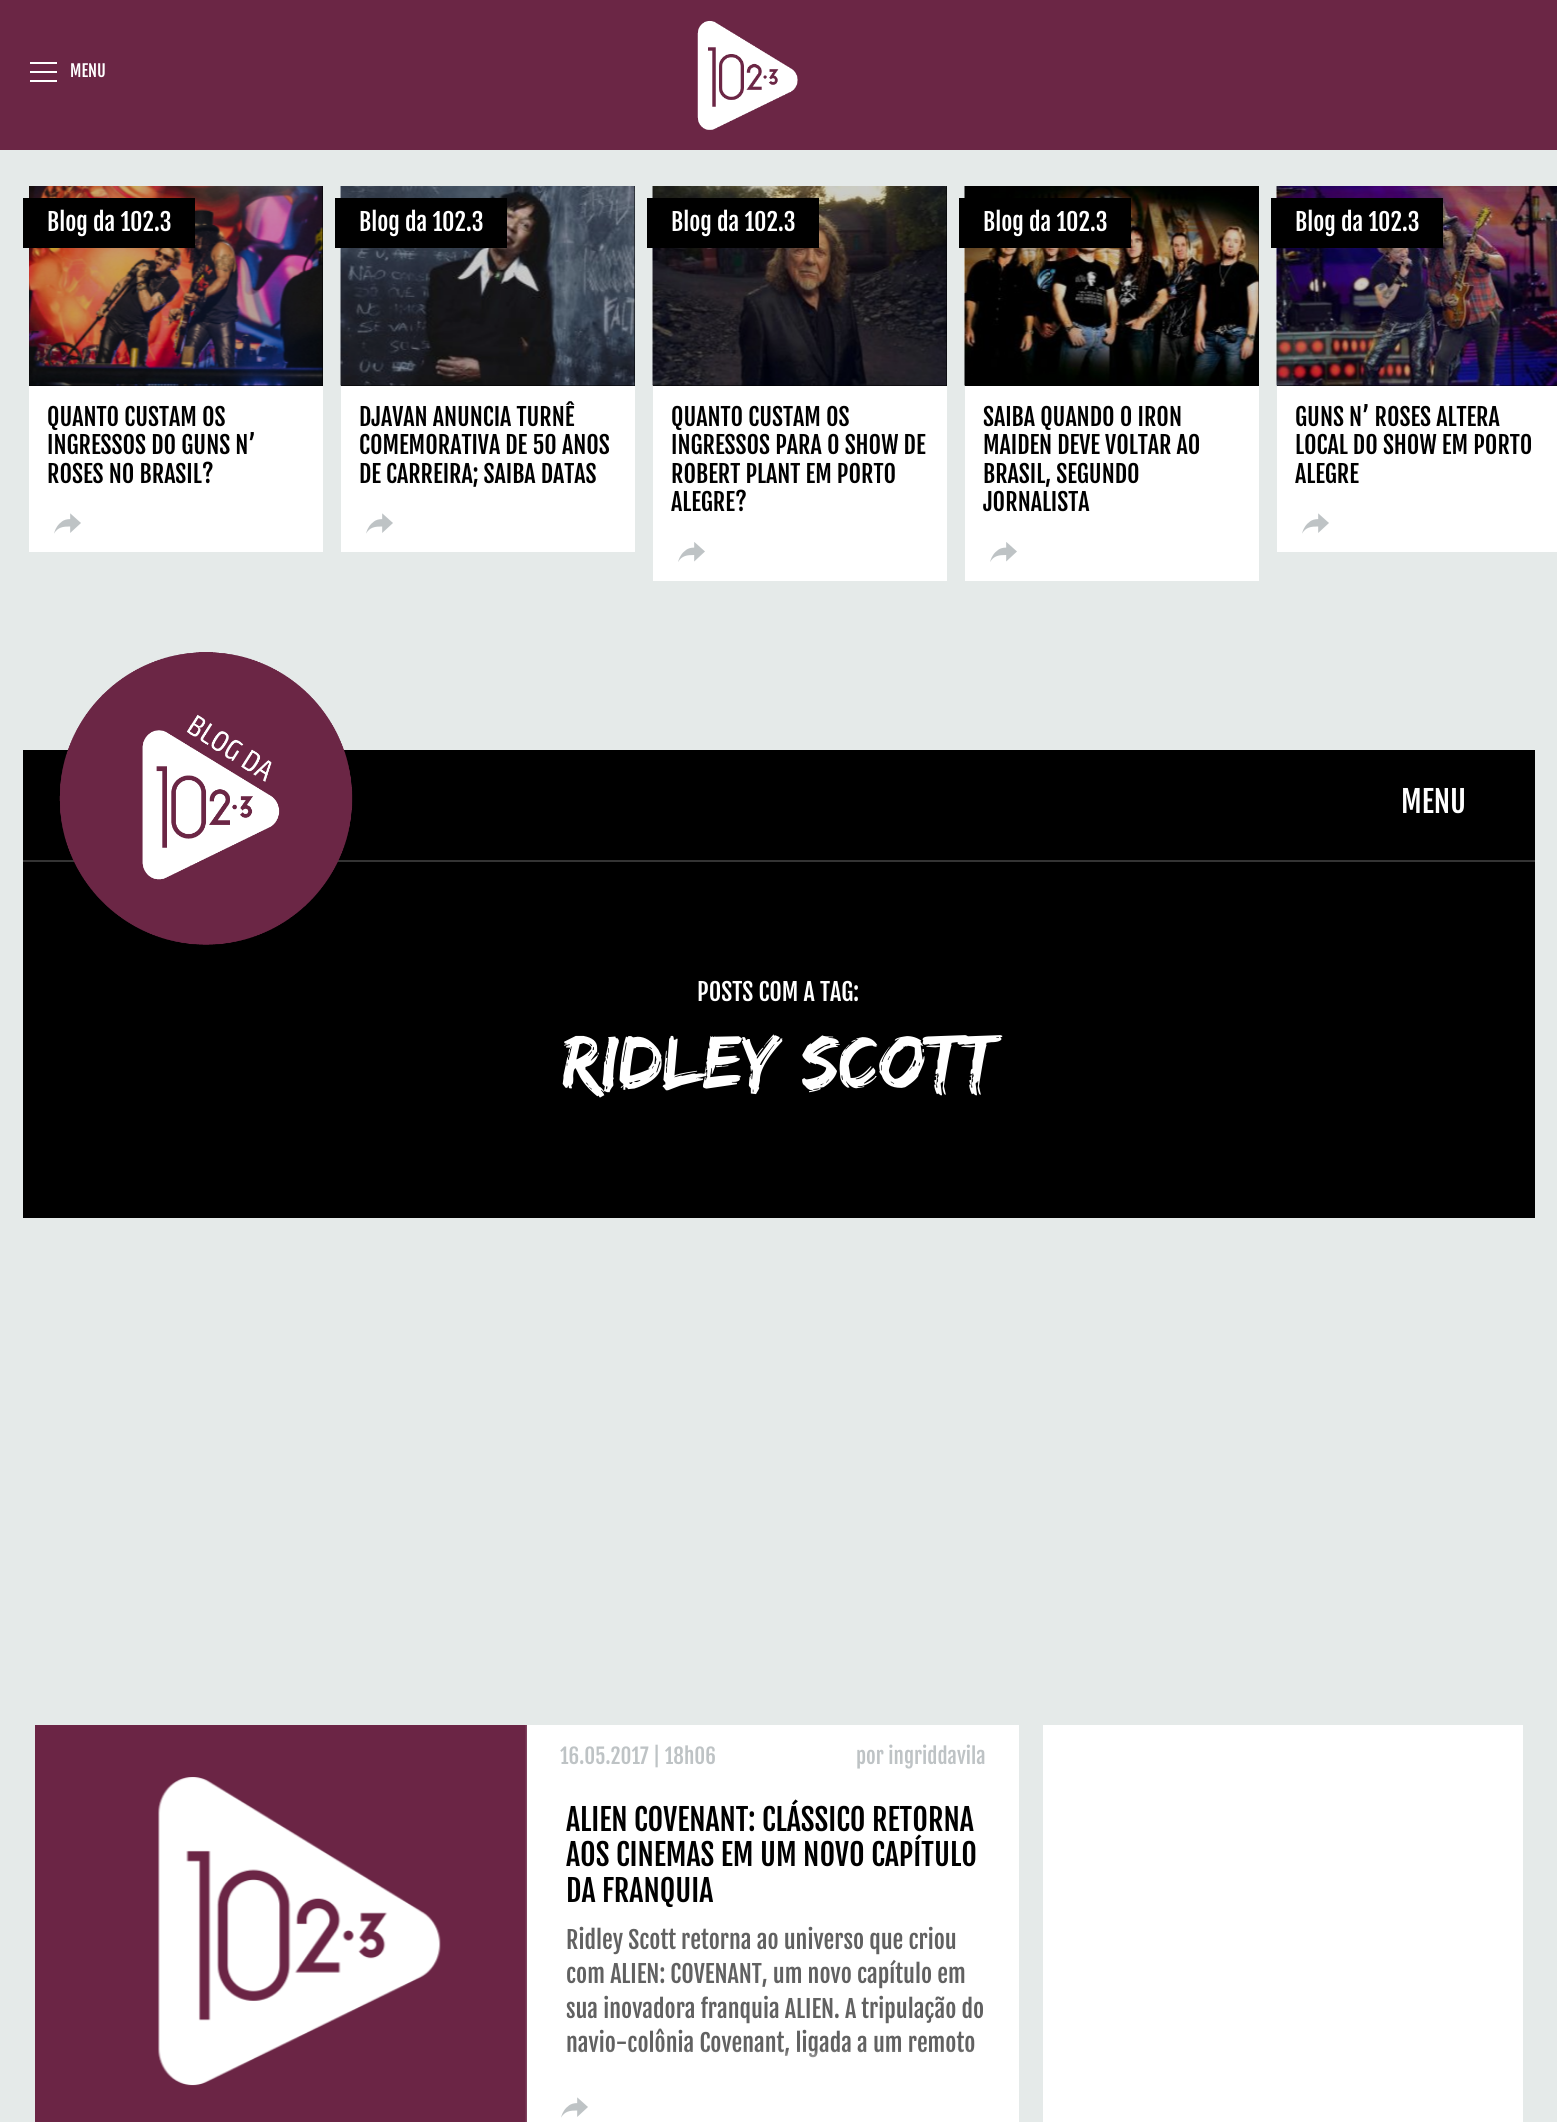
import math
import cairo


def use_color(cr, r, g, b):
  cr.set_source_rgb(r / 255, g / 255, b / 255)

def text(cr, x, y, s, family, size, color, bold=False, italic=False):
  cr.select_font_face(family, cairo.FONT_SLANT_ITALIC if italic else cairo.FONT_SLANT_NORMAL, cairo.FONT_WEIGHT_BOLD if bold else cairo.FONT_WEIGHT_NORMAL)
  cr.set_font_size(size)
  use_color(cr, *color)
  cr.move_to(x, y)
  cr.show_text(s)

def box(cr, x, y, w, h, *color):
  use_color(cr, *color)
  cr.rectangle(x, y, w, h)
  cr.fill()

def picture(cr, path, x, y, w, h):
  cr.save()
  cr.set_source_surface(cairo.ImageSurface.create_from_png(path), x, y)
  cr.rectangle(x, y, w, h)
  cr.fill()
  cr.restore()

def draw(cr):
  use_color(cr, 229, 234, 233)
  cr.paint()
  box(cr, 0, 0, 1557, 150, 107, 38, 69)
  box(cr, 30, 62, 27, 2, 255, 255, 255)
  box(cr, 30, 71, 27, 2, 255, 255, 255)
  box(cr, 30, 80, 27, 2, 255, 255, 255)
  picture(cr, "img_01.png", 697, 20, 101, 110)
  box(cr, 29, 386, 294, 166, 255, 255, 255)
  box(cr, 29, 186, 294, 200, 0, 0, 0)
  picture(cr, "img_02.png", 29, 186, 294, 200)
  box(cr, 23, 198, 172, 50, 0, 0, 0)
  picture(cr, "img_03.png", 54, 513, 27, 21)
  box(cr, 341, 386, 294, 166, 255, 255, 255)
  box(cr, 341, 186, 294, 200, 0, 0, 0)
  picture(cr, "img_04.png", 340, 186, 295, 200)
  box(cr, 335, 198, 172, 50, 0, 0, 0)
  picture(cr, "img_03.png", 366, 513, 27, 21)
  box(cr, 653, 386, 294, 195, 255, 255, 255)
  box(cr, 653, 186, 294, 200, 0, 0, 0)
  picture(cr, "img_05.png", 652, 186, 295, 200)
  box(cr, 647, 198, 172, 50, 0, 0, 0)
  picture(cr, "img_06.png", 678, 542, 27, 20)
  box(cr, 965, 386, 294, 195, 255, 255, 255)
  box(cr, 965, 186, 294, 200, 0, 0, 0)
  picture(cr, "img_07.png", 964, 186, 295, 200)
  box(cr, 959, 198, 172, 50, 0, 0, 0)
  picture(cr, "img_06.png", 990, 542, 27, 20)
  box(cr, 1277, 386, 280, 166, 255, 255, 255)
  box(cr, 1277, 385, 280, 1, 0, 0, 0)
  picture(cr, "img_08.png", 1276, 186, 281, 200)
  box(cr, 1271, 198, 172, 50, 0, 0, 0)
  picture(cr, "img_03.png", 1302, 513, 27, 21)
  box(cr, 23, 750, 1512, 110, 0, 0, 0)
  box(cr, 23, 862, 1512, 356, 0, 0, 0)
  box(cr, 23, 860, 1512, 2, 52, 52, 52)
  picture(cr, "img_09.png", 59, 652, 294, 293)
  box(cr, 525, 1725, 494, 397, 255, 255, 255)
  picture(cr, "img_10.png", 35, 1725, 492, 397)
  picture(cr, "img_03.png", 561, 2097, 27, 21)
  box(cr, 1043, 1725, 480, 397, 255, 255, 255)
  text(cr, 70, 77, "MENU", "Fjalla One", 16.5, (255, 255, 255))
  text(cr, 47, 231, "Blog da 102.3", "Fjalla One", 24, (255, 255, 255))
  text(cr, 47, 426, "QUANTO CUSTAM OS", "Fjalla One", 24, (0, 0, 0))
  text(cr, 47, 454, "INGRESSOS DO GUNS N’", "Fjalla One", 24, (0, 0, 0))
  text(cr, 47, 483, "ROSES NO BRASIL?", "Fjalla One", 24, (0, 0, 0))
  text(cr, 359, 231, "Blog da 102.3", "Fjalla One", 24, (255, 255, 255))
  text(cr, 359, 426, "DJAVAN ANUNCIA TURNÊ", "Fjalla One", 24, (0, 0, 0))
  text(cr, 359, 454, "COMEMORATIVA DE 50 ANOS", "Fjalla One", 24, (0, 0, 0))
  text(cr, 359, 483, "DE CARREIRA; SAIBA DATAS", "Fjalla One", 24, (0, 0, 0))
  text(cr, 671, 231, "Blog da 102.3", "Fjalla One", 24, (255, 255, 255))
  text(cr, 671, 426, "QUANTO CUSTAM OS", "Fjalla One", 24, (0, 0, 0))
  text(cr, 671, 454, "INGRESSOS PARA O SHOW DE", "Fjalla One", 24, (0, 0, 0))
  text(cr, 671, 483, "ROBERT PLANT EM PORTO", "Fjalla One", 24, (0, 0, 0))
  text(cr, 671, 511, "ALEGRE?", "Fjalla One", 24, (0, 0, 0))
  text(cr, 983, 231, "Blog da 102.3", "Fjalla One", 24, (255, 255, 255))
  text(cr, 983, 426, "SAIBA QUANDO O IRON", "Fjalla One", 24, (0, 0, 0))
  text(cr, 983, 454, "MAIDEN DEVE VOLTAR AO", "Fjalla One", 24, (0, 0, 0))
  text(cr, 983, 483, "BRASIL, SEGUNDO", "Fjalla One", 24, (0, 0, 0))
  text(cr, 983, 511, "JORNALISTA", "Fjalla One", 24, (0, 0, 0))
  text(cr, 1295, 231, "Blog da 102.3", "Fjalla One", 24, (255, 255, 255))
  text(cr, 1295, 426, "GUNS N’ ROSES ALTERA", "Fjalla One", 24, (0, 0, 0))
  text(cr, 1295, 454, "LOCAL DO SHOW EM PORTO", "Fjalla One", 24, (0, 0, 0))
  text(cr, 1295, 483, "ALEGRE", "Fjalla One", 24, (0, 0, 0))
  text(cr, 1401, 813, "MENU", "Fjalla One", 30, (255, 255, 255))
  text(cr, 697, 1001, "POSTS COM A TAG:", "Fjalla One", 24, (255, 255, 255))
  text(cr, 562, 1087, "RIDLEY SCOTT", "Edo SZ", 78, (255, 255, 255))
  text(cr, 560, 1764, "16.05.2017 | 18h06", "Fjalla One", 21, (190, 195, 197))
  text(cr, 856, 1764, "por ingriddavila", "Fjalla One", 21, (190, 195, 197))
  text(cr, 566, 1831, "ALIEN COVENANT: CLÁSSICO RETORNA", "Fjalla One", 30, (0, 0, 0))
  text(cr, 566, 1866, "AOS CINEMAS EM UM NOVO CAPÍTULO", "Fjalla One", 30, (0, 0, 0))
  text(cr, 566, 1902, "DA FRANQUIA", "Fjalla One", 30, (0, 0, 0))
  text(cr, 566, 1949, "Ridley Scott retorna ao universo que criou", "Fjalla One", 24, (97, 97, 97))
  text(cr, 566, 1983, "com ALIEN: COVENANT, um novo capítulo em", "Fjalla One", 24, (97, 97, 97))
  text(cr, 566, 2018, "sua inovadora franquia ALIEN. A tripulação do", "Fjalla One", 24, (97, 97, 97))
  text(cr, 566, 2052, "navio-colônia Covenant, ligada a um remoto", "Fjalla One", 24, (97, 97, 97))
  gradient = cairo.LinearGradient(773, 2049, 773, 2073)
  gradient.add_color_stop_rgba(0, 1, 1, 1, 0)
  gradient.add_color_stop_rgba(1, 1, 1, 1, 1)
  cr.set_source(gradient)
  cr.rectangle(567, 2050, 406, 8)
  cr.fill()


surface = cairo.ImageSurface(cairo.FORMAT_RGB24, 1557, 2122)
cr = cairo.Context(surface)
options = cairo.FontOptions()
options.set_hint_metrics(cairo.HINT_METRICS_OFF)
options.set_hint_style(cairo.HINT_STYLE_NONE)
cr.set_font_options(options)
cr.set_miter_limit(4)
draw(cr)
surface.write_to_png("out.png")
